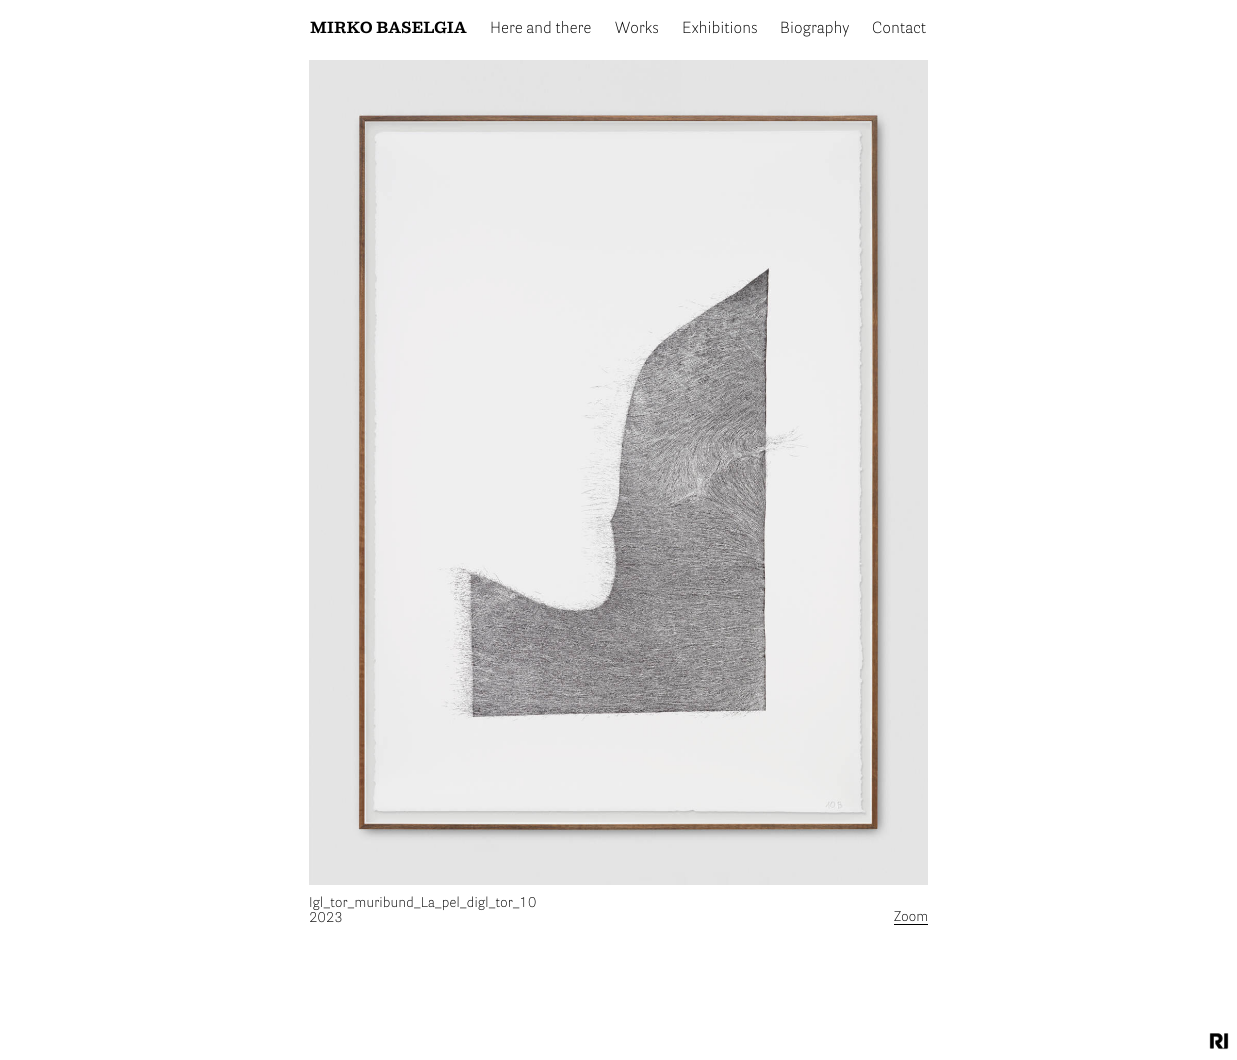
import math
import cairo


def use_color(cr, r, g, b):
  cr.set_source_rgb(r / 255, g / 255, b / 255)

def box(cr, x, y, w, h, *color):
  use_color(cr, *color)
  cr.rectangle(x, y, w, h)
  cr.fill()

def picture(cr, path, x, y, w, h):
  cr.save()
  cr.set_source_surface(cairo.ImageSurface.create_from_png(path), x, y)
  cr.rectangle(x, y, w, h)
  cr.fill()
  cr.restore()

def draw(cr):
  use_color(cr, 255, 255, 255)
  cr.paint()
  picture(cr, "img_01.png", 310, 21, 157, 13)
  picture(cr, "img_02.png", 491, 20, 100, 14)
  picture(cr, "img_03.png", 615, 20, 43, 14)
  picture(cr, "img_04.png", 683, 20, 74, 14)
  picture(cr, "img_05.png", 781, 20, 68, 17)
  picture(cr, "img_06.png", 872, 21, 54, 13)
  picture(cr, "img_07.png", 309, 60, 619, 825)
  picture(cr, "img_08.png", 310, 896, 226, 15)
  picture(cr, "img_09.png", 310, 912, 32, 11)
  picture(cr, "img_10.png", 894, 911, 33, 11)
  box(cr, 894, 924, 34, 1, 0, 0, 0)
  picture(cr, "img_11.png", 1209, 1033, 20, 17)


surface = cairo.ImageSurface(cairo.FORMAT_RGB24, 1237, 1060)
cr = cairo.Context(surface)
options = cairo.FontOptions()
options.set_hint_metrics(cairo.HINT_METRICS_OFF)
options.set_hint_style(cairo.HINT_STYLE_NONE)
cr.set_font_options(options)
cr.set_miter_limit(4)
draw(cr)
surface.write_to_png("out.png")
